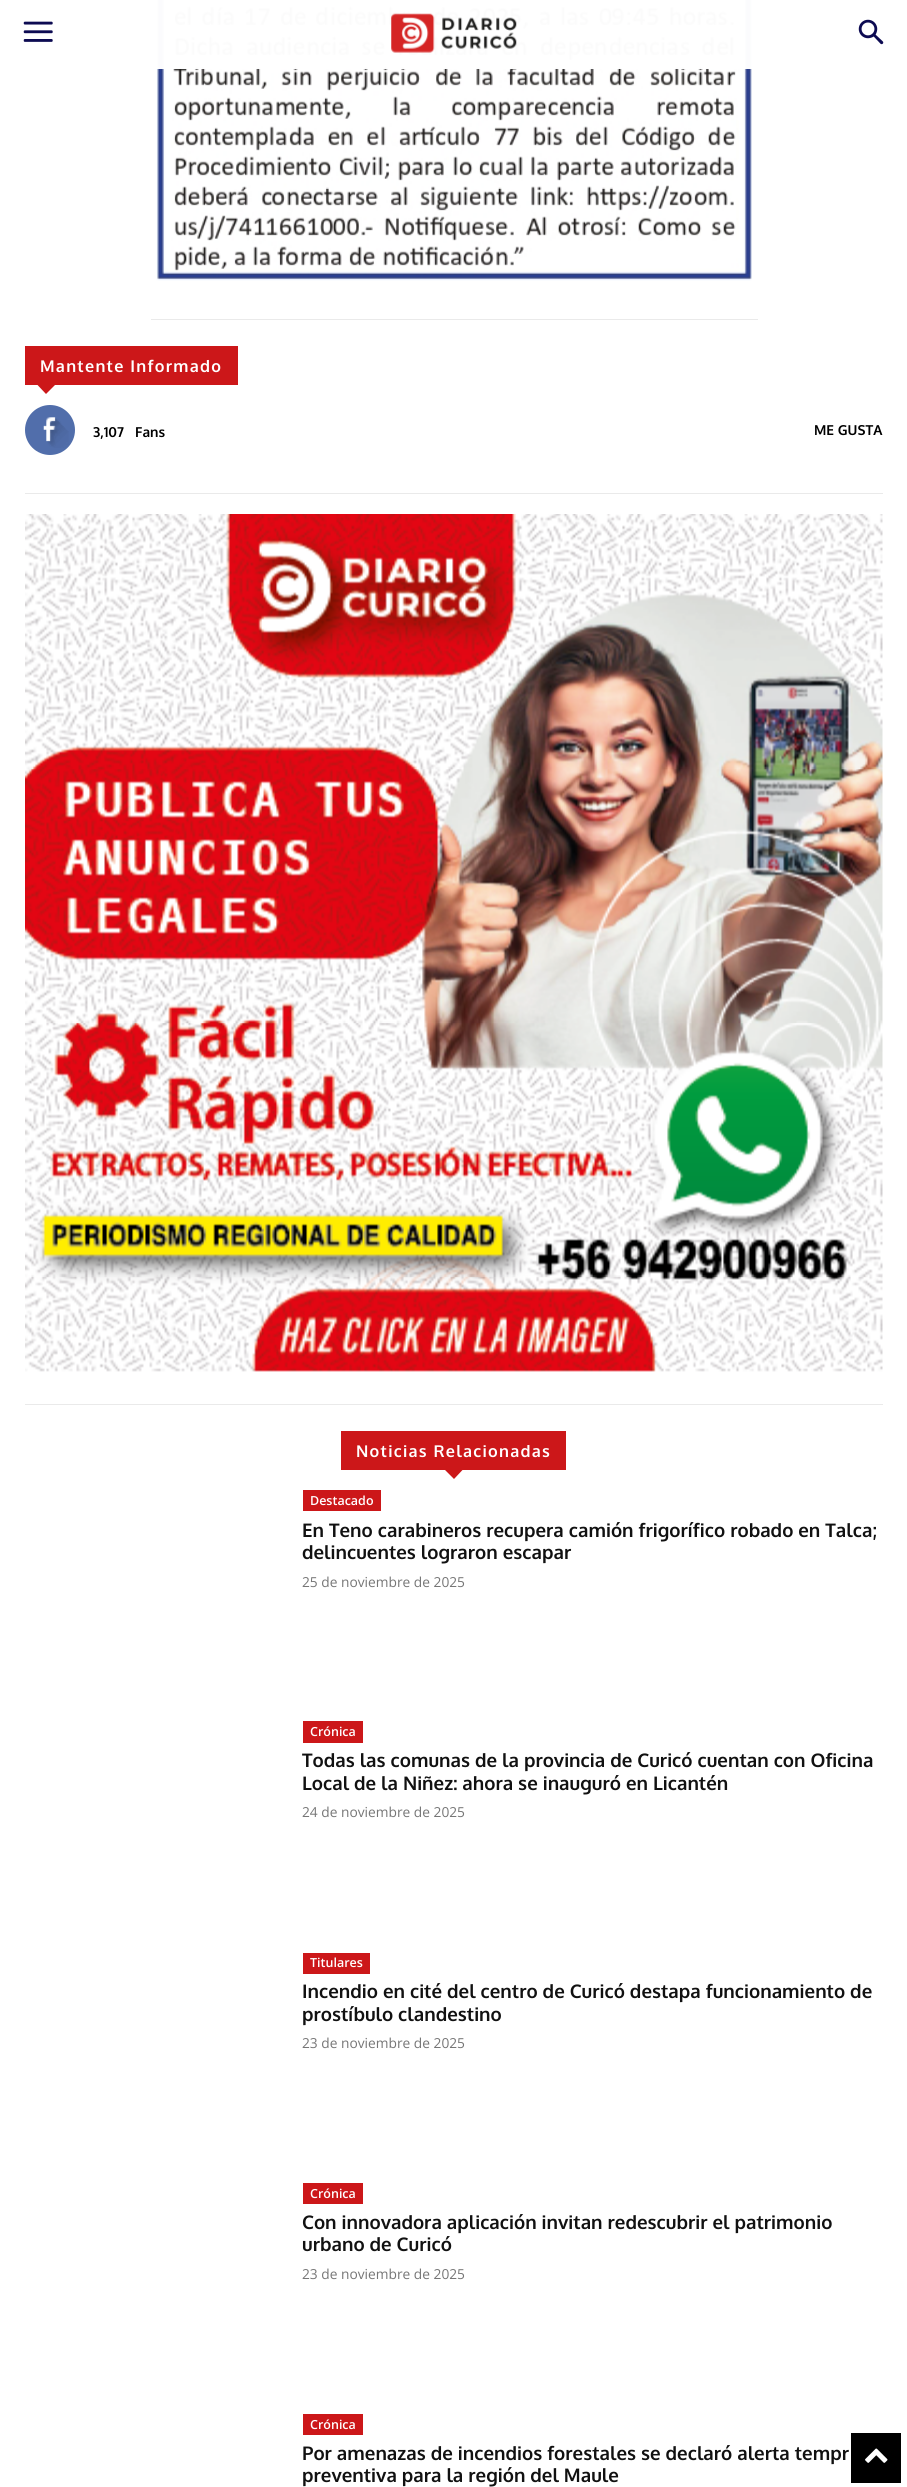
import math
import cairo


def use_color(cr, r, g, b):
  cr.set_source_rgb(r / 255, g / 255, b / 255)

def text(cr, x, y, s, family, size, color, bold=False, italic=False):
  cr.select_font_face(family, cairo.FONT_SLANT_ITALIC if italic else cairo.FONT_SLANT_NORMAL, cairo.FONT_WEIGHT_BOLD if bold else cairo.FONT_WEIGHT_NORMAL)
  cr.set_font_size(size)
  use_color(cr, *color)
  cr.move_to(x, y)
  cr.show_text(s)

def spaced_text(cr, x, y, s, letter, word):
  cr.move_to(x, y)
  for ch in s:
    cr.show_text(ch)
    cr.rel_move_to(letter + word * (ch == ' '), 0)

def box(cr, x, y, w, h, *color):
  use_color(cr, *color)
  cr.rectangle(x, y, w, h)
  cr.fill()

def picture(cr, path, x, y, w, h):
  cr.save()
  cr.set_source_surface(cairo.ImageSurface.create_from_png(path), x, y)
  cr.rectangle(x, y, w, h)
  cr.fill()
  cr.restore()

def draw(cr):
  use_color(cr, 255, 255, 255)
  cr.paint()
  picture(cr, "img_04.png", 156, 0, 596, 281)
  cr.set_source_rgba(1, 1, 1, 0.98)
  cr.rectangle(156, 0, 596, 69)
  cr.fill()
  picture(cr, "img_01.png", 23, 21, 30, 21)
  picture(cr, "img_02.png", 391, 13, 126, 40)
  picture(cr, "img_03.png", 858, 19, 26, 26)
  box(cr, 151, 319, 607, 1, 234, 234, 234)
  box(cr, 25, 346, 213, 39, 204, 23, 25)
  cr.new_path()
  cr.move_to(37.5, 385)
  cr.line_to(55, 385)
  cr.line_to(46, 394)
  cr.close_path()
  cr.fill()
  use_color(cr, 81, 110, 171)
  cr.arc(50, 430, 25, 0, 2 * math.pi)
  cr.fill()
  picture(cr, "img_05.png", 43, 417, 26, 31)
  box(cr, 25, 493, 858, 1, 234, 234, 234)
  box(cr, 25, 1404, 858, 1, 234, 234, 234)
  picture(cr, "img_06.png", 25, 514, 858, 858)
  box(cr, 341, 1431, 225, 39, 204, 23, 25)
  cr.new_path()
  cr.move_to(445, 1470)
  cr.line_to(462.5, 1470)
  cr.line_to(454, 1479)
  cr.close_path()
  cr.fill()
  box(cr, 303, 1490, 78, 21, 204, 23, 25)
  box(cr, 303, 1721, 60, 22, 204, 23, 25)
  box(cr, 303, 1953, 67, 21, 204, 23, 25)
  box(cr, 303, 2183, 60, 21, 204, 23, 25)
  box(cr, 303, 2414, 60, 21, 204, 23, 25)
  box(cr, 851, 2433, 50, 50, 0, 0, 0)
  picture(cr, "img_07.png", 865, 2448, 23, 15)
  cr.select_font_face("Oxygen", cairo.FONT_SLANT_NORMAL, cairo.FONT_WEIGHT_BOLD)
  cr.set_font_size(16.25)
  use_color(cr, 255, 255, 255)
  spaced_text(cr, 40, 372, "Mantente Informado", 1.25, 0)
  text(cr, 93, 437, "3,107", "Oxygen", 13.75, (0, 0, 0), bold=True)
  text(cr, 135, 437, "Fans", "Oxygen", 13.75, (0, 0, 0), bold=True)
  text(cr, 814, 435, "ME GUSTA", "Oxygen", 13.75, (0, 0, 0), bold=True)
  cr.set_font_size(16.25)
  use_color(cr, 255, 255, 255)
  spaced_text(cr, 356, 1457, "Noticias Relacionadas", 1.25, 0)
  text(cr, 310, 1505, "Destacado", "Open Sans SemiBold", 12.5, (255, 255, 255))
  text(cr, 302, 1537, "En Teno carabineros recupera camión frigorífico robado en Talca;", "Oxygen", 18.75, (17, 17, 17), bold=True)
  text(cr, 302, 1559, "delincuentes lograron escapar", "Oxygen", 18.75, (17, 17, 17), bold=True)
  text(cr, 302, 1587, "25 de noviembre de 2025", "Open Sans", 13.75, (118, 118, 118))
  text(cr, 310, 1736, "Crónica", "Open Sans SemiBold", 12.5, (255, 255, 255))
  text(cr, 302, 1767, "Todas las comunas de la provincia de Curicó cuentan con Oficina", "Oxygen", 18.75, (17, 17, 17), bold=True)
  text(cr, 302, 1790, "Local de la Niñez: ahora se inauguró en Licantén", "Oxygen", 18.75, (17, 17, 17), bold=True)
  text(cr, 302, 1817, "24 de noviembre de 2025", "Open Sans", 13.75, (118, 118, 118))
  text(cr, 310, 1967, "Titulares", "Open Sans SemiBold", 12.5, (255, 255, 255))
  text(cr, 302, 1998, "Incendio en cité del centro de Curicó destapa funcionamiento de", "Oxygen", 18.75, (17, 17, 17), bold=True)
  text(cr, 302, 2021, "prostíbulo clandestino", "Oxygen", 18.75, (17, 17, 17), bold=True)
  text(cr, 302, 2048, "23 de noviembre de 2025", "Open Sans", 13.75, (118, 118, 118))
  text(cr, 310, 2198, "Crónica", "Open Sans SemiBold", 12.5, (255, 255, 255))
  text(cr, 302, 2229, "Con innovadora aplicación invitan redescubrir el patrimonio", "Oxygen", 18.75, (17, 17, 17), bold=True)
  text(cr, 302, 2251, "urbano de Curicó", "Oxygen", 18.75, (17, 17, 17), bold=True)
  text(cr, 302, 2279, "23 de noviembre de 2025", "Open Sans", 13.75, (118, 118, 118))
  text(cr, 310, 2429, "Crónica", "Open Sans SemiBold", 12.5, (255, 255, 255))
  text(cr, 302, 2460, "Por amenazas de incendios forestales se declaró alerta tempr", "Oxygen", 18.75, (17, 17, 17), bold=True)
  text(cr, 302, 2482, "preventiva para la región del Maule", "Oxygen", 18.75, (17, 17, 17), bold=True)


surface = cairo.ImageSurface(cairo.FORMAT_RGB24, 907, 2487)
cr = cairo.Context(surface)
options = cairo.FontOptions()
options.set_hint_metrics(cairo.HINT_METRICS_OFF)
options.set_hint_style(cairo.HINT_STYLE_NONE)
cr.set_font_options(options)
cr.set_miter_limit(4)
draw(cr)
surface.write_to_png("out.png")
